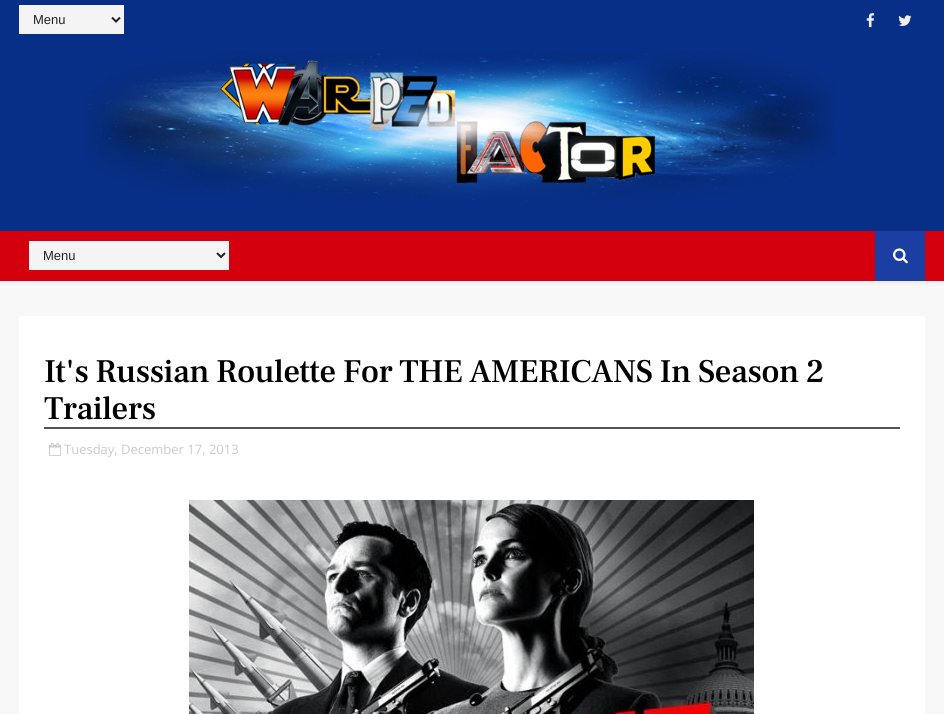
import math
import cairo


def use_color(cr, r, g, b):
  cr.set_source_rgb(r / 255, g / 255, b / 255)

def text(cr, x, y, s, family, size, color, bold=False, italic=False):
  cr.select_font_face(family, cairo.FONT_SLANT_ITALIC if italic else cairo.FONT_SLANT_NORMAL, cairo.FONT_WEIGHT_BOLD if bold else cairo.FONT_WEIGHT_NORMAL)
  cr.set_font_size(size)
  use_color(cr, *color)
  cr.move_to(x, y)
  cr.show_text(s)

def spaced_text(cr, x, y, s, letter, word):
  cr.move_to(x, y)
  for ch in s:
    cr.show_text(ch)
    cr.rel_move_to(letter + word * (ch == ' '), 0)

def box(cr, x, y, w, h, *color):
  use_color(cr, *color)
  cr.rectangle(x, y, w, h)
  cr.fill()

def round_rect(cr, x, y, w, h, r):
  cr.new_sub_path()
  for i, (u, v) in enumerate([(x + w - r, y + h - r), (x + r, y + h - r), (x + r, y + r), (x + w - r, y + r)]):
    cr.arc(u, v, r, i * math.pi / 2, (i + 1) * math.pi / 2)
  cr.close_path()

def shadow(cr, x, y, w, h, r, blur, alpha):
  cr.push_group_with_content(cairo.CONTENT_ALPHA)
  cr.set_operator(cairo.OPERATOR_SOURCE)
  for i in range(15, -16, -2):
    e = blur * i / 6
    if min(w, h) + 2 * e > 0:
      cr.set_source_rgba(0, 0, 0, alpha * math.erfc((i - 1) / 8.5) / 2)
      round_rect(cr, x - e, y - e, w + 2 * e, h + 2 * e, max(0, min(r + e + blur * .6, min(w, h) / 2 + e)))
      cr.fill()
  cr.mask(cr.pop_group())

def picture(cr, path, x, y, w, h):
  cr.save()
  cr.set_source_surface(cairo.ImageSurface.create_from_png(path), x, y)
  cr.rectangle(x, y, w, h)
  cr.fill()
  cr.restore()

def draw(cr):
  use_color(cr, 248, 248, 248)
  cr.paint()
  box(cr, 0, 0, 944, 231, 8, 47, 135)
  box(cr, 19, 5, 105, 29, 244, 244, 244)
  cr.new_path()
  cr.move_to(112, 17.5)
  cr.line_to(116, 21.5)
  cr.line_to(120, 17.5)
  use_color(cr, 34, 34, 34)
  cr.stroke()
  picture(cr, "img_01.png", 866, 13, 9, 15)
  picture(cr, "img_02.png", 898, 15, 14, 11)
  picture(cr, "img_03.png", 84, 51, 752, 150)
  use_color(cr, 204, 204, 204)
  shadow(cr, 0, 233, 944, 50, 0, 1.5, 0.3)
  box(cr, 0, 231, 944, 50, 212, 0, 14)
  box(cr, 29, 241, 200, 29, 244, 244, 244)
  cr.new_path()
  cr.move_to(217, 253)
  cr.line_to(221, 257)
  cr.line_to(225, 253)
  use_color(cr, 34, 34, 34)
  cr.stroke()
  box(cr, 875, 231, 50, 50, 27, 62, 163)
  picture(cr, "img_04.png", 893, 248, 15, 16)
  box(cr, 19, 316, 906, 398, 255, 255, 255)
  box(cr, 44, 427, 856, 2, 85, 85, 85)
  picture(cr, "img_05.png", 49, 442, 12, 14)
  picture(cr, "img_06.png", 189, 500, 565, 214)
  text(cr, 33, 24, "Menu", "Liberation Sans", 13, (34, 34, 34))
  text(cr, 43, 260, "Menu", "Liberation Sans", 13, (34, 34, 34))
  cr.select_font_face("Frank Ruhl Libre Medium")
  cr.set_font_size(33)
  use_color(cr, 0, 0, 0)
  spaced_text(cr, 44, 382, "It's Russian Roulette For THE AMERICANS In Season 2", -0.6, 0)
  spaced_text(cr, 44, 419, "Trailers", -0.6, 0)
  text(cr, 64, 454, "Tuesday, December 17, 2013", "Open Sans", 13, (203, 203, 203))


surface = cairo.ImageSurface(cairo.FORMAT_RGB24, 944, 714)
cr = cairo.Context(surface)
options = cairo.FontOptions()
options.set_hint_metrics(cairo.HINT_METRICS_OFF)
options.set_hint_style(cairo.HINT_STYLE_NONE)
cr.set_font_options(options)
cr.set_miter_limit(4)
draw(cr)
surface.write_to_png("out.png")
